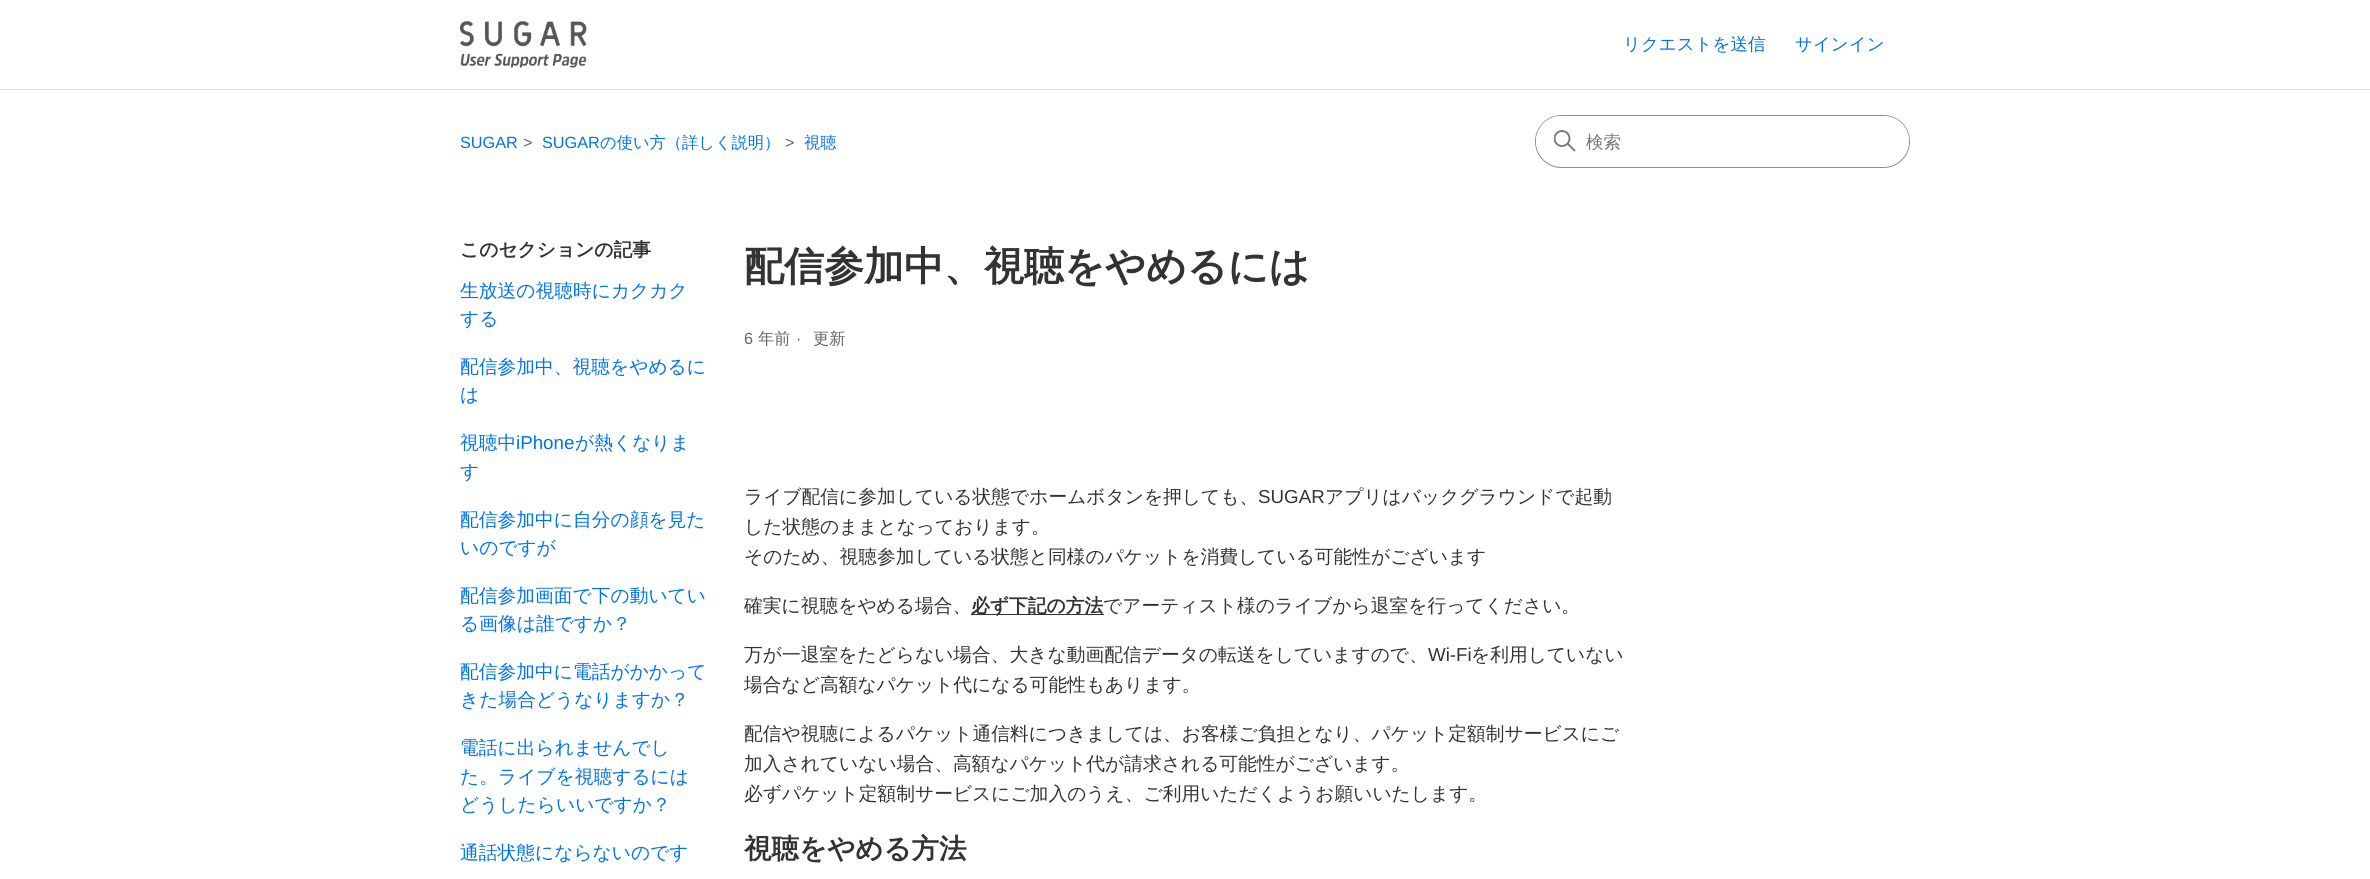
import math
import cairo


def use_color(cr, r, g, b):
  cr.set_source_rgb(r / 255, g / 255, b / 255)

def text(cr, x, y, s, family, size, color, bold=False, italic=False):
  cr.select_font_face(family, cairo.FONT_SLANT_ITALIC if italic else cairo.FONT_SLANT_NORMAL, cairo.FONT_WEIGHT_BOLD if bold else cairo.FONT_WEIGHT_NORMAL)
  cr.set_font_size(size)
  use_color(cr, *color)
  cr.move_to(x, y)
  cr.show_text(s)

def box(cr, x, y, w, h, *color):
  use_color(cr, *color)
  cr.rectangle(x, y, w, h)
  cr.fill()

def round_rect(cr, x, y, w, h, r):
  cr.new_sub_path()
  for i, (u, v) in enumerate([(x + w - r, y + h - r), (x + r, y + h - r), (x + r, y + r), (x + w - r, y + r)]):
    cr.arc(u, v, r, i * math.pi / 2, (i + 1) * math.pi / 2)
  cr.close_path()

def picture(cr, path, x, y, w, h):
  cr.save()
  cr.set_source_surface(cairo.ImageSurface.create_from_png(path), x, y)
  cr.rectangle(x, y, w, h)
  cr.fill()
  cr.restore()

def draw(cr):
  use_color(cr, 255, 255, 255)
  cr.paint()
  picture(cr, "img_01.png", 460, 21, 127, 47)
  box(cr, 0, 89, 2370, 1, 221, 221, 221)
  round_rect(cr, 1535.5, 115.5, 374, 52, 26)
  use_color(cr, 132, 143, 153)
  cr.set_line_width(1)
  cr.stroke()
  use_color(cr, 255, 255, 255)
  round_rect(cr, 1536, 116, 373, 50, 25)
  cr.fill()
  cr.save()
  cr.rectangle(1554, 130, 22, 23)
  cr.clip()
  cr.arc(1562, 138.5, 7.5, 0, 2 * math.pi)
  use_color(cr, 119, 119, 119)
  cr.set_line_width(1.9)
  cr.stroke()
  cr.restore()
  cr.new_path()
  cr.move_to(1574.5, 150.5)
  cr.line_to(1568, 144)
  use_color(cr, 119, 119, 119)
  cr.set_line_width(1.9)
  cr.set_line_cap(cairo.LINE_CAP_ROUND)
  cr.stroke()
  box(cr, 971, 614, 133, 1, 51, 51, 51)
  text(cr, 1623, 50, "リクエストを送信", "WenQuanYi Zen Hei Medium", 17.5, (0, 114, 239))
  text(cr, 1795, 50, "サインイン", "WenQuanYi Zen Hei Medium", 17.5, (0, 114, 239))
  text(cr, 460, 148, "SUGAR", "Liberation Sans", 16.25, (0, 114, 239))
  text(cr, 523, 148, ">", "Liberation Sans", 16.25, (102, 102, 102))
  text(cr, 542, 148, "SUGAR", "Liberation Sans", 16.25, (0, 114, 239))
  text(cr, 600, 148, "の使い方（詳しく説明）", "WenQuanYi Zen Hei Medium", 16.25, (0, 114, 239))
  text(cr, 785, 148, ">", "Liberation Sans", 16.25, (102, 102, 102))
  text(cr, 804, 148, "視聴", "WenQuanYi Zen Hei Medium", 16.25, (0, 114, 239))
  text(cr, 1586, 148, "検索", "WenQuanYi Zen Hei Medium", 17.5, (117, 117, 117))
  text(cr, 460, 256, "このセクションの記事", "WenQuanYi Zen Hei", 18.75, (51, 51, 51), bold=True)
  text(cr, 460, 297, "生放送の視聴時にカクカク", "WenQuanYi Zen Hei Medium", 18.75, (0, 114, 239))
  text(cr, 460, 325, "する", "WenQuanYi Zen Hei Medium", 18.75, (0, 114, 239))
  text(cr, 460, 373, "配信参加中、視聴をやめるに", "WenQuanYi Zen Hei Medium", 18.75, (0, 114, 239))
  text(cr, 460, 401, "は", "WenQuanYi Zen Hei Medium", 18.75, (0, 114, 239))
  text(cr, 460, 449, "視聴中", "WenQuanYi Zen Hei Medium", 18.75, (0, 114, 239))
  text(cr, 516, 449, "iPhone", "Liberation Sans", 18.75, (0, 114, 239))
  text(cr, 575, 449, "が熱くなりま", "WenQuanYi Zen Hei Medium", 18.75, (0, 114, 239))
  text(cr, 460, 478, "す", "WenQuanYi Zen Hei Medium", 18.75, (0, 114, 239))
  text(cr, 460, 526, "配信参加中に自分の顔を見た", "WenQuanYi Zen Hei Medium", 18.75, (0, 114, 239))
  text(cr, 460, 554, "いのですが", "WenQuanYi Zen Hei Medium", 18.75, (0, 114, 239))
  text(cr, 460, 602, "配信参加画面で下の動いてい", "WenQuanYi Zen Hei Medium", 18.75, (0, 114, 239))
  text(cr, 460, 630, "る画像は誰ですか？", "WenQuanYi Zen Hei Medium", 18.75, (0, 114, 239))
  text(cr, 460, 678, "配信参加中に電話がかかって", "WenQuanYi Zen Hei Medium", 18.75, (0, 114, 239))
  text(cr, 460, 706, "きた場合どうなりますか？", "WenQuanYi Zen Hei Medium", 18.75, (0, 114, 239))
  text(cr, 460, 754, "電話に出られませんでし", "WenQuanYi Zen Hei Medium", 18.75, (0, 114, 239))
  text(cr, 460, 783, "た。ライブを視聴するには", "WenQuanYi Zen Hei Medium", 18.75, (0, 114, 239))
  text(cr, 460, 811, "どうしたらいいですか？", "WenQuanYi Zen Hei Medium", 18.75, (0, 114, 239))
  text(cr, 460, 859, "通話状態にならないのです", "WenQuanYi Zen Hei Medium", 18.75, (0, 114, 239))
  text(cr, 744, 280, "配信参加中、視聴をやめるには", "WenQuanYi Zen Hei", 40, (51, 51, 51), bold=True)
  text(cr, 744, 344, "6", "Liberation Sans", 16.25, (102, 102, 102))
  text(cr, 758, 344, "年前", "WenQuanYi Zen Hei Medium", 16.25, (102, 102, 102))
  text(cr, 796, 344, "·", "Liberation Sans", 16.25, (102, 102, 102))
  text(cr, 813, 344, "更新", "WenQuanYi Zen Hei Medium", 16.25, (102, 102, 102))
  text(cr, 744, 503, "ライブ配信に参加している状態でホームボタンを押しても、", "WenQuanYi Zen Hei Medium", 18.75, (51, 51, 51))
  text(cr, 1258, 503, "SUGAR", "Liberation Sans", 18.75, (51, 51, 51))
  text(cr, 1325, 503, "アプリはバックグラウンドで起動", "WenQuanYi Zen Hei Medium", 18.75, (51, 51, 51))
  text(cr, 744, 533, "した状態のままとなっております。", "WenQuanYi Zen Hei Medium", 18.75, (51, 51, 51))
  text(cr, 744, 563, "そのため、視聴参加している状態と同様のパケットを消費している可能性がございます", "WenQuanYi Zen Hei Medium", 18.75, (51, 51, 51))
  text(cr, 744, 612, "確実に視聴をやめる場合、", "WenQuanYi Zen Hei Medium", 18.75, (51, 51, 51))
  text(cr, 971, 612, "必ず下記の方法", "WenQuanYi Zen Hei", 18.75, (51, 51, 51), bold=True)
  text(cr, 1103, 612, "でアーティスト様のライブから退室を行ってください。", "WenQuanYi Zen Hei Medium", 18.75, (51, 51, 51))
  text(cr, 744, 661, "万が一退室をたどらない場合、大きな動画配信データの転送をしていますので、", "WenQuanYi Zen Hei Medium", 18.75, (51, 51, 51))
  text(cr, 1428, 661, "Wi-Fi", "Liberation Sans", 18.75, (51, 51, 51))
  text(cr, 1471, 661, "を利用していない", "WenQuanYi Zen Hei Medium", 18.75, (51, 51, 51))
  text(cr, 744, 691, "場合など高額なパケット代になる可能性もあります。", "WenQuanYi Zen Hei Medium", 18.75, (51, 51, 51))
  text(cr, 744, 740, "配信や視聴によるパケット通信料につきましては、お客様ご負担となり、パケット定額制サービスにご", "WenQuanYi Zen Hei Medium", 18.75, (51, 51, 51))
  text(cr, 744, 770, "加入されていない場合、高額なパケット代が請求される可能性がございます。", "WenQuanYi Zen Hei Medium", 18.75, (51, 51, 51))
  text(cr, 744, 800, "必ずパケット定額制サービスにご加入のうえ、ご利用いただくようお願いいたします。", "WenQuanYi Zen Hei Medium", 18.75, (51, 51, 51))
  text(cr, 744, 858, "視聴をやめる方法", "WenQuanYi Zen Hei", 27.5, (51, 51, 51), bold=True)


surface = cairo.ImageSurface(cairo.FORMAT_RGB24, 2370, 879)
cr = cairo.Context(surface)
options = cairo.FontOptions()
options.set_hint_metrics(cairo.HINT_METRICS_OFF)
options.set_hint_style(cairo.HINT_STYLE_NONE)
cr.set_font_options(options)
cr.set_miter_limit(4)
draw(cr)
surface.write_to_png("out.png")
